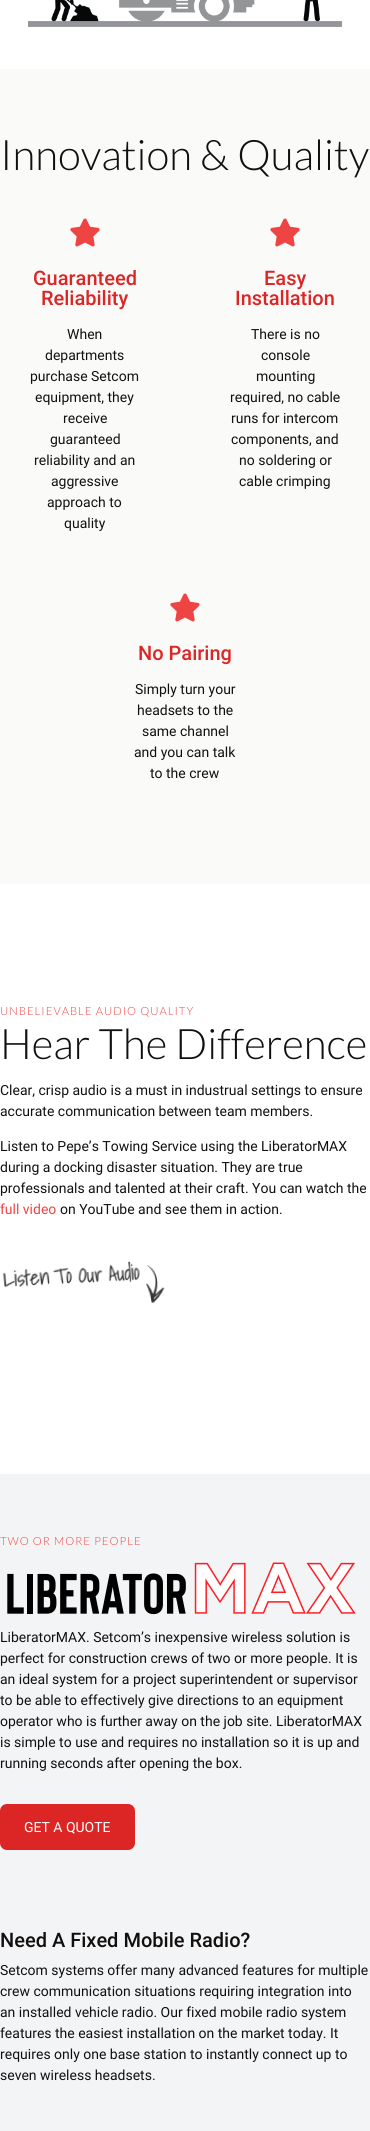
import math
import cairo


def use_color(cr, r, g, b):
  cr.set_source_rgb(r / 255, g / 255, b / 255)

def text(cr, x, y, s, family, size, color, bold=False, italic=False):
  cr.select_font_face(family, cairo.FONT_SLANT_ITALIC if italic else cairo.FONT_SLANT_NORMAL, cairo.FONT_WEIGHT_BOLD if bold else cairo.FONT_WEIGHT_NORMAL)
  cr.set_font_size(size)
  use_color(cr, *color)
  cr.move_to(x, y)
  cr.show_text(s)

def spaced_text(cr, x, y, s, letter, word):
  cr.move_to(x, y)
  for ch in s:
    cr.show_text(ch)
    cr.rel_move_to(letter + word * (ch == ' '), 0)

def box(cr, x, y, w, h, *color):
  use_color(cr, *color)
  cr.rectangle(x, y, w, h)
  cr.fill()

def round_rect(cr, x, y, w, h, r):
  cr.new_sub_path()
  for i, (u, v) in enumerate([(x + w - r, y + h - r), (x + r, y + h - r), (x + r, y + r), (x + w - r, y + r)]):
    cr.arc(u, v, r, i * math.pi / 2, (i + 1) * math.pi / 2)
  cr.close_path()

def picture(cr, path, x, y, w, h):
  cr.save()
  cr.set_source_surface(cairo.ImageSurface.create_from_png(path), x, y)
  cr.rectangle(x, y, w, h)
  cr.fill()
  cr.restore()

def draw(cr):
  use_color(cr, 255, 255, 255)
  cr.paint()
  picture(cr, "img_01.png", 28, 0, 314, 27)
  box(cr, 0, 69, 370, 815, 250, 250, 249)
  picture(cr, "img_02.png", 70, 218, 30, 29)
  picture(cr, "img_02.png", 270, 218, 30, 29)
  picture(cr, "img_02.png", 170, 593, 30, 29)
  picture(cr, "img_03.png", 2, 1261, 163, 42)
  box(cr, 0, 1474, 370, 657, 243, 244, 246)
  picture(cr, "img_04.png", 7, 1562, 349, 53)
  use_color(cr, 220, 38, 38)
  round_rect(cr, 0, 1804, 135, 46, 7)
  cr.fill()
  text(cr, 0, 170, "Innovation & Quality", "Lato Light", 42, (18, 15, 15))
  text(cr, 33, 285, "Guaranteed", "Roboto Medium", 20, (220, 38, 38))
  text(cr, 41, 305, "Reliability", "Roboto Medium", 20, (220, 38, 38))
  text(cr, 67, 339, "When", "Roboto", 14, (18, 15, 15))
  text(cr, 45, 360, "departments", "Roboto", 14, (18, 15, 15))
  text(cr, 30, 381, "purchase Setcom", "Roboto", 14, (18, 15, 15))
  text(cr, 35, 402, "equipment, they", "Roboto", 14, (18, 15, 15))
  text(cr, 63, 423, "receive", "Roboto", 14, (18, 15, 15))
  text(cr, 50, 444, "guaranteed", "Roboto", 14, (18, 15, 15))
  text(cr, 34, 465, "reliability and an", "Roboto", 14, (18, 15, 15))
  text(cr, 51, 486, "aggressive", "Roboto", 14, (18, 15, 15))
  text(cr, 47, 507, "approach to", "Roboto", 14, (18, 15, 15))
  text(cr, 64, 528, "quality", "Roboto", 14, (18, 15, 15))
  text(cr, 264, 285, "Easy", "Roboto Medium", 20, (220, 38, 38))
  text(cr, 235, 305, "Installation", "Roboto Medium", 20, (220, 38, 38))
  text(cr, 251, 339, "There is no", "Roboto", 14, (18, 15, 15))
  text(cr, 261, 360, "console", "Roboto", 14, (18, 15, 15))
  text(cr, 256, 381, "mounting", "Roboto", 14, (18, 15, 15))
  text(cr, 230, 402, "required, no cable", "Roboto", 14, (18, 15, 15))
  text(cr, 231, 423, "runs for intercom", "Roboto", 14, (18, 15, 15))
  text(cr, 231, 444, "components, and", "Roboto", 14, (18, 15, 15))
  text(cr, 239, 465, "no soldering or", "Roboto", 14, (18, 15, 15))
  text(cr, 239, 486, "cable crimping", "Roboto", 14, (18, 15, 15))
  text(cr, 138, 660, "No Pairing", "Roboto Medium", 20, (220, 38, 38))
  text(cr, 135, 694, "Simply turn your", "Roboto", 14, (18, 15, 15))
  text(cr, 137, 715, "headsets to the", "Roboto", 14, (18, 15, 15))
  text(cr, 142, 736, "same channel", "Roboto", 14, (18, 15, 15))
  text(cr, 134, 757, "and you can talk", "Roboto", 14, (18, 15, 15))
  text(cr, 150, 778, "to the crew", "Roboto", 14, (18, 15, 15))
  cr.select_font_face("Lato Light")
  cr.set_font_size(11.25)
  use_color(cr, 239, 68, 68)
  spaced_text(cr, 0, 1015, "UNBELIEVABLE AUDIO QUALITY", 1, 0)
  text(cr, 0, 1059, "Hear The Difference", "Lato Light", 42, (18, 15, 15))
  text(cr, 0, 1095, "Clear, crisp audio is a must in industrual settings to ensure", "Roboto", 14, (18, 15, 15))
  text(cr, 0, 1116, "accurate communication between team members.", "Roboto", 14, (18, 15, 15))
  text(cr, 0, 1151, "Listen to Pepe’s Towing Service using the LiberatorMAX", "Roboto", 14, (18, 15, 15))
  text(cr, 0, 1172, "during a docking disaster situation. They are true", "Roboto", 14, (18, 15, 15))
  text(cr, 0, 1193, "professionals and talented at their craft. You can watch the", "Roboto", 14, (18, 15, 15))
  text(cr, 0, 1214, "full video", "Roboto", 14, (239, 68, 68))
  text(cr, 60, 1214, "on YouTube and see them in action.", "Roboto", 14, (18, 15, 15))
  cr.select_font_face("Lato Light")
  cr.set_font_size(11.25)
  use_color(cr, 239, 68, 68)
  spaced_text(cr, 0, 1545, "TWO OR MORE PEOPLE", 1, 0)
  text(cr, 0, 1642, "LiberatorMAX. Setcom’s inexpensive wireless solution is", "Roboto", 14, (18, 15, 15))
  text(cr, 0, 1663, "perfect for construction crews of two or more people. It is", "Roboto", 14, (18, 15, 15))
  text(cr, 0, 1684, "an ideal system for a project superintendent or supervisor", "Roboto", 14, (18, 15, 15))
  text(cr, 0, 1705, "to be able to effectively give directions to an equipment", "Roboto", 14, (18, 15, 15))
  text(cr, 0, 1726, "operator who is further away on the job site. LiberatorMAX", "Roboto", 14, (18, 15, 15))
  text(cr, 0, 1747, "is simple to use and requires no installation so it is up and", "Roboto", 14, (18, 15, 15))
  text(cr, 0, 1768, "running seconds after opening the box.", "Roboto", 14, (18, 15, 15))
  text(cr, 24, 1832, "GET A QUOTE", "Roboto", 14, (255, 255, 255))
  text(cr, 0, 1947, "Need A Fixed Mobile Radio?", "Roboto Medium", 20, (18, 15, 15))
  text(cr, 0, 1975, "Setcom systems offer many advanced features for multiple", "Roboto", 14, (18, 15, 15))
  text(cr, 0, 1996, "crew communication situations requiring integration into", "Roboto", 14, (18, 15, 15))
  text(cr, 0, 2017, "an installed vehicle radio. Our fixed mobile radio system", "Roboto", 14, (18, 15, 15))
  text(cr, 0, 2038, "features the easiest installation on the market today. It", "Roboto", 14, (18, 15, 15))
  text(cr, 0, 2059, "requires only one base station to instantly connect up to", "Roboto", 14, (18, 15, 15))
  text(cr, 0, 2080, "seven wireless headsets.", "Roboto", 14, (18, 15, 15))


surface = cairo.ImageSurface(cairo.FORMAT_RGB24, 370, 2131)
cr = cairo.Context(surface)
options = cairo.FontOptions()
options.set_hint_metrics(cairo.HINT_METRICS_OFF)
options.set_hint_style(cairo.HINT_STYLE_NONE)
cr.set_font_options(options)
cr.set_miter_limit(4)
draw(cr)
surface.write_to_png("out.png")
